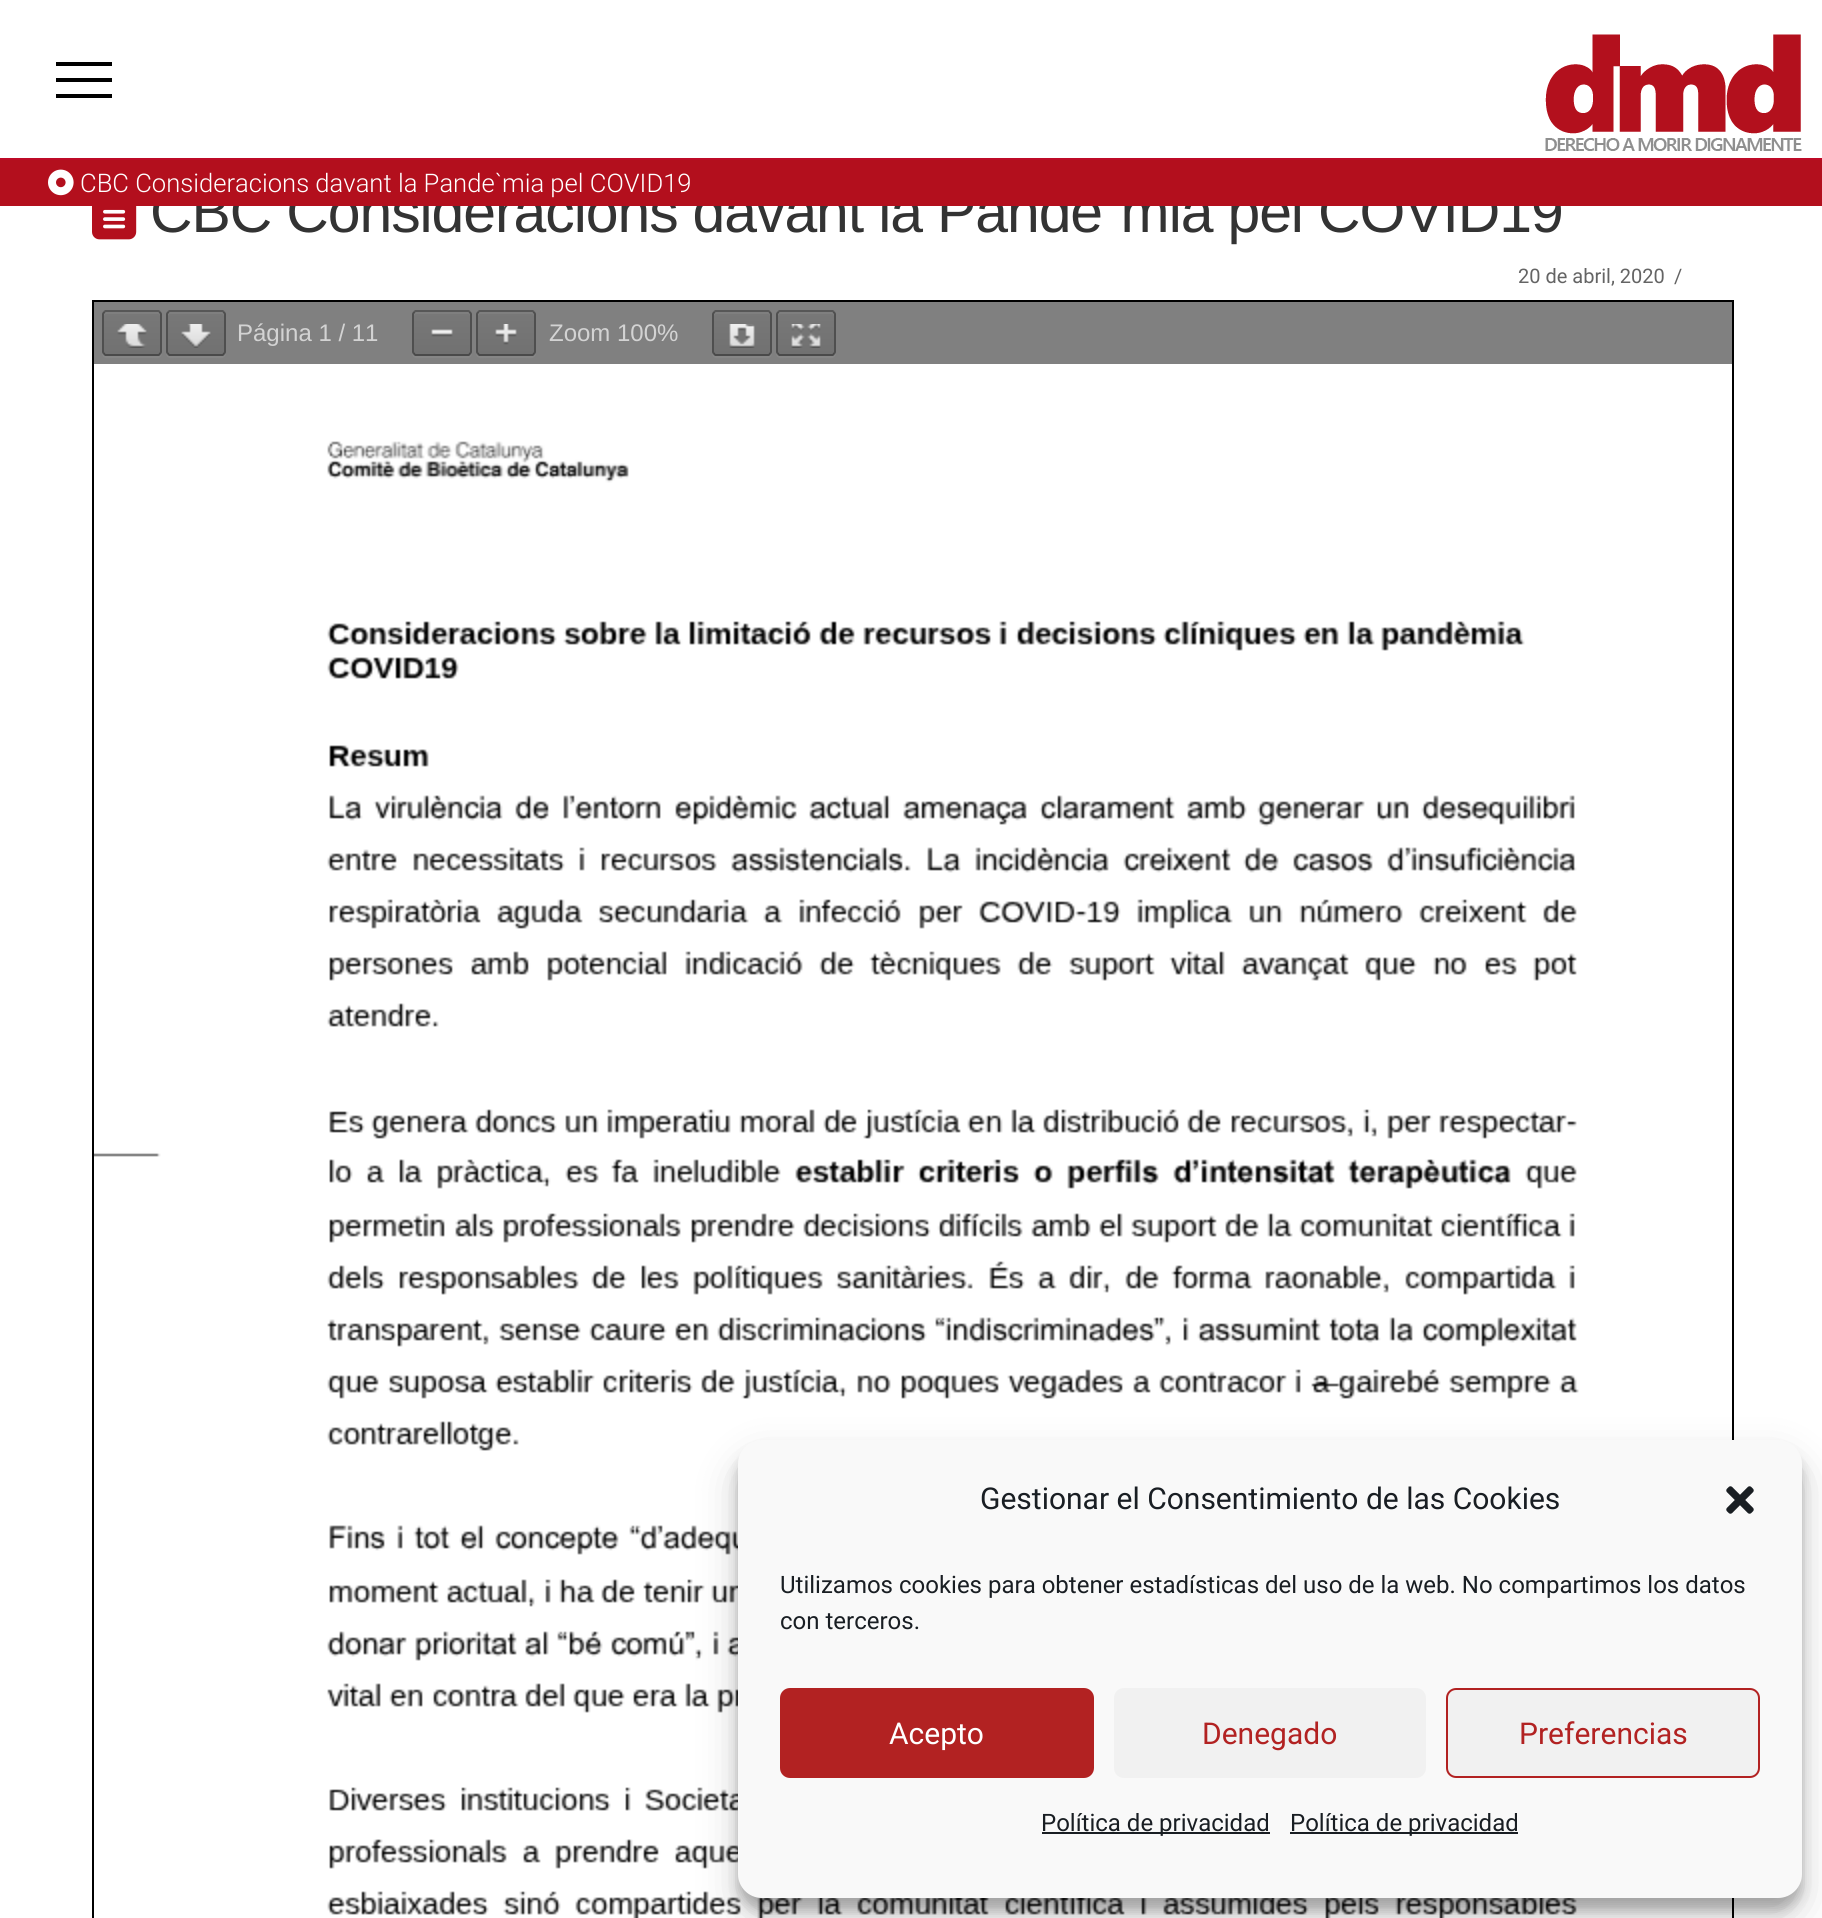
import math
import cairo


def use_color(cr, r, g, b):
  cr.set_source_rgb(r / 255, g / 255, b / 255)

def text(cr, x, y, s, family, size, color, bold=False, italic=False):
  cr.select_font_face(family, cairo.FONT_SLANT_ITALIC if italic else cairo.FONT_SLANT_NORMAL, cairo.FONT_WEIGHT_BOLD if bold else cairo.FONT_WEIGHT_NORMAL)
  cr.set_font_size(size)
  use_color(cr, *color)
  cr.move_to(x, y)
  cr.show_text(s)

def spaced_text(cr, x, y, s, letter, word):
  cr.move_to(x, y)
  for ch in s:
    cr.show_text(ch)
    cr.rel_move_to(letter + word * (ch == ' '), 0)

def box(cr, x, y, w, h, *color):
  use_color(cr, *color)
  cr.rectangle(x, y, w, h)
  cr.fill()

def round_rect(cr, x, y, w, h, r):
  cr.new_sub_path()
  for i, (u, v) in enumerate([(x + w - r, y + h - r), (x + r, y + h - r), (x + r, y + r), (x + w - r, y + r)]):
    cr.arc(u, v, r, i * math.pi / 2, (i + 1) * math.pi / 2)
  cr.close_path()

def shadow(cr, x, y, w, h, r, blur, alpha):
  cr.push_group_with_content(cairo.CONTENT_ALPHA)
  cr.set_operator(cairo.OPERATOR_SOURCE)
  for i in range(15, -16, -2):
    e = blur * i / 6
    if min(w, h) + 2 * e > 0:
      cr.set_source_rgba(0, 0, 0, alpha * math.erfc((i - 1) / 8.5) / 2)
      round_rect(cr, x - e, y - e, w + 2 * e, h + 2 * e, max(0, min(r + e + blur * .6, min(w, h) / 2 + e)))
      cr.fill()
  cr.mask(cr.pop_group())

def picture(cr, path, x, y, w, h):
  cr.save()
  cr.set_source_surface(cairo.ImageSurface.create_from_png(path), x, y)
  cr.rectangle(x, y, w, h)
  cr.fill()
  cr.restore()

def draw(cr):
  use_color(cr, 255, 255, 255)
  cr.paint()
  box(cr, 0, 158, 1822, 2, 190, 10, 39)
  box(cr, 56, 62, 56, 4, 0, 0, 0)
  box(cr, 56, 78, 56, 4, 0, 0, 0)
  box(cr, 56, 94, 56, 4, 0, 0, 0)
  picture(cr, "img_01.png", 1545, 34, 257, 117)
  picture(cr, "img_03.png", 92, 206, 45, 34)
  cr.rectangle(93, 301, 1640, 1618)
  cr.stroke()
  box(cr, 94, 302, 1638, 62, 128, 128, 128)
  use_color(cr, 134, 134, 134)
  cr.new_path()
  cr.move_to(102, 352)
  cr.curve_to(102, 360, 107, 358, 115, 358)
  cr.line_to(149, 358)
  cr.curve_to(157, 358, 162, 360, 162, 352)
  cr.curve_to(162, 354, 160, 356, 158, 356)
  cr.line_to(106, 356)
  cr.curve_to(104, 356, 102, 354, 102, 352)
  cr.close_path()
  cr.fill()
  gradient = cairo.LinearGradient(132, 312, 132, 354)
  gradient.add_color_stop_rgba(0, 0.471, 0.471, 0.471, 1)
  gradient.add_color_stop_rgba(1, 0.443, 0.443, 0.443, 1)
  cr.set_source(gradient)
  round_rect(cr, 104, 312, 56, 42, 2)
  cr.fill()
  use_color(cr, 127, 127, 127)
  cr.new_path()
  cr.move_to(106, 314)
  cr.line_to(158, 314)
  cr.curve_to(159, 314, 160, 315, 160, 316)
  cr.curve_to(160, 310, 156, 312, 149, 312)
  cr.line_to(115, 312)
  cr.curve_to(108, 312, 104, 310, 104, 316)
  cr.curve_to(104, 315, 105, 314, 106, 314)
  cr.close_path()
  cr.fill()
  cr.new_path()
  cr.move_to(104, 312)
  cr.line_to(105.5, 311)
  cr.line_to(158.5, 311)
  cr.line_to(160, 312)
  cr.set_source_rgba(0, 0, 0, 0.32)
  cr.stroke()
  cr.new_path()
  cr.move_to(160, 312)
  cr.line_to(161, 314)
  cr.line_to(161, 352)
  cr.line_to(160, 354)
  cr.set_source_rgba(0, 0, 0, 0.38)
  cr.stroke()
  cr.new_path()
  cr.move_to(160, 354)
  cr.line_to(158.5, 355)
  cr.line_to(105.5, 355)
  cr.line_to(104, 354)
  cr.set_source_rgba(0, 0, 0, 0.42)
  cr.stroke()
  cr.new_path()
  cr.move_to(104, 354)
  cr.line_to(103, 352)
  cr.line_to(103, 314)
  cr.line_to(104, 312)
  cr.set_source_rgba(0, 0, 0, 0.38)
  cr.stroke()
  picture(cr, "img_04.png", 117, 324, 30, 24)
  use_color(cr, 134, 134, 134)
  cr.new_path()
  cr.move_to(166, 352)
  cr.curve_to(166, 360, 171, 358, 179, 358)
  cr.line_to(213, 358)
  cr.curve_to(221, 358, 226, 360, 226, 352)
  cr.curve_to(226, 354, 224, 356, 222, 356)
  cr.line_to(170, 356)
  cr.curve_to(168, 356, 166, 354, 166, 352)
  cr.close_path()
  cr.fill()
  gradient = cairo.LinearGradient(196, 312, 196, 354)
  gradient.add_color_stop_rgba(0, 0.471, 0.471, 0.471, 1)
  gradient.add_color_stop_rgba(1, 0.443, 0.443, 0.443, 1)
  cr.set_source(gradient)
  round_rect(cr, 168, 312, 56, 42, 2)
  cr.fill()
  use_color(cr, 127, 127, 127)
  cr.new_path()
  cr.move_to(170, 314)
  cr.line_to(222, 314)
  cr.curve_to(223, 314, 224, 315, 224, 316)
  cr.curve_to(224, 310, 220, 312, 213, 312)
  cr.line_to(179, 312)
  cr.curve_to(172, 312, 168, 310, 168, 316)
  cr.curve_to(168, 315, 169, 314, 170, 314)
  cr.close_path()
  cr.fill()
  cr.new_path()
  cr.move_to(168, 312)
  cr.line_to(169.5, 311)
  cr.line_to(222.5, 311)
  cr.line_to(224, 312)
  cr.set_source_rgba(0, 0, 0, 0.32)
  cr.stroke()
  cr.new_path()
  cr.move_to(224, 312)
  cr.line_to(225, 314)
  cr.line_to(225, 352)
  cr.line_to(224, 354)
  cr.set_source_rgba(0, 0, 0, 0.38)
  cr.stroke()
  cr.new_path()
  cr.move_to(224, 354)
  cr.line_to(222.5, 355)
  cr.line_to(169.5, 355)
  cr.line_to(168, 354)
  cr.set_source_rgba(0, 0, 0, 0.42)
  cr.stroke()
  cr.new_path()
  cr.move_to(168, 354)
  cr.line_to(167, 352)
  cr.line_to(167, 314)
  cr.line_to(168, 312)
  cr.set_source_rgba(0, 0, 0, 0.38)
  cr.stroke()
  picture(cr, "img_05.png", 181, 324, 30, 24)
  use_color(cr, 134, 134, 134)
  cr.new_path()
  cr.move_to(412, 352)
  cr.curve_to(412, 360, 417, 358, 425, 358)
  cr.line_to(459, 358)
  cr.curve_to(467, 358, 472, 360, 472, 352)
  cr.curve_to(472, 354, 470, 356, 468, 356)
  cr.line_to(416, 356)
  cr.curve_to(414, 356, 412, 354, 412, 352)
  cr.close_path()
  cr.fill()
  gradient = cairo.LinearGradient(442, 312, 442, 354)
  gradient.add_color_stop_rgba(0, 0.471, 0.471, 0.471, 1)
  gradient.add_color_stop_rgba(1, 0.443, 0.443, 0.443, 1)
  cr.set_source(gradient)
  round_rect(cr, 414, 312, 56, 42, 2)
  cr.fill()
  use_color(cr, 127, 127, 127)
  cr.new_path()
  cr.move_to(416, 314)
  cr.line_to(468, 314)
  cr.curve_to(469, 314, 470, 315, 470, 316)
  cr.curve_to(470, 310, 466, 312, 459, 312)
  cr.line_to(425, 312)
  cr.curve_to(418, 312, 414, 310, 414, 316)
  cr.curve_to(414, 315, 415, 314, 416, 314)
  cr.close_path()
  cr.fill()
  cr.new_path()
  cr.move_to(414, 312)
  cr.line_to(415.5, 311)
  cr.line_to(468.5, 311)
  cr.line_to(470, 312)
  cr.set_source_rgba(0, 0, 0, 0.32)
  cr.stroke()
  cr.new_path()
  cr.move_to(470, 312)
  cr.line_to(471, 314)
  cr.line_to(471, 352)
  cr.line_to(470, 354)
  cr.set_source_rgba(0, 0, 0, 0.38)
  cr.stroke()
  cr.new_path()
  cr.move_to(470, 354)
  cr.line_to(468.5, 355)
  cr.line_to(415.5, 355)
  cr.line_to(414, 354)
  cr.set_source_rgba(0, 0, 0, 0.42)
  cr.stroke()
  cr.new_path()
  cr.move_to(414, 354)
  cr.line_to(413, 352)
  cr.line_to(413, 314)
  cr.line_to(414, 312)
  cr.set_source_rgba(0, 0, 0, 0.38)
  cr.stroke()
  picture(cr, "img_06.png", 431, 329, 22, 8)
  use_color(cr, 134, 134, 134)
  cr.new_path()
  cr.move_to(476, 352)
  cr.curve_to(476, 360, 481, 358, 489, 358)
  cr.line_to(523, 358)
  cr.curve_to(531, 358, 536, 360, 536, 352)
  cr.curve_to(536, 354, 534, 356, 532, 356)
  cr.line_to(480, 356)
  cr.curve_to(478, 356, 476, 354, 476, 352)
  cr.close_path()
  cr.fill()
  gradient = cairo.LinearGradient(506, 312, 506, 354)
  gradient.add_color_stop_rgba(0, 0.471, 0.471, 0.471, 1)
  gradient.add_color_stop_rgba(1, 0.443, 0.443, 0.443, 1)
  cr.set_source(gradient)
  round_rect(cr, 478, 312, 56, 42, 2)
  cr.fill()
  use_color(cr, 127, 127, 127)
  cr.new_path()
  cr.move_to(480, 314)
  cr.line_to(532, 314)
  cr.curve_to(533, 314, 534, 315, 534, 316)
  cr.curve_to(534, 310, 530, 312, 523, 312)
  cr.line_to(489, 312)
  cr.curve_to(482, 312, 478, 310, 478, 316)
  cr.curve_to(478, 315, 479, 314, 480, 314)
  cr.close_path()
  cr.fill()
  cr.new_path()
  cr.move_to(478, 312)
  cr.line_to(479.5, 311)
  cr.line_to(532.5, 311)
  cr.line_to(534, 312)
  cr.set_source_rgba(0, 0, 0, 0.32)
  cr.stroke()
  cr.new_path()
  cr.move_to(534, 312)
  cr.line_to(535, 314)
  cr.line_to(535, 352)
  cr.line_to(534, 354)
  cr.set_source_rgba(0, 0, 0, 0.38)
  cr.stroke()
  cr.new_path()
  cr.move_to(534, 354)
  cr.line_to(532.5, 355)
  cr.line_to(479.5, 355)
  cr.line_to(478, 354)
  cr.set_source_rgba(0, 0, 0, 0.42)
  cr.stroke()
  cr.new_path()
  cr.move_to(478, 354)
  cr.line_to(477, 352)
  cr.line_to(477, 314)
  cr.line_to(478, 312)
  cr.set_source_rgba(0, 0, 0, 0.38)
  cr.stroke()
  picture(cr, "img_07.png", 495, 324, 22, 21)
  use_color(cr, 134, 134, 134)
  cr.new_path()
  cr.move_to(712, 352)
  cr.curve_to(712, 360, 717, 358, 725, 358)
  cr.line_to(759, 358)
  cr.curve_to(767, 358, 772, 360, 772, 352)
  cr.curve_to(772, 354, 770, 356, 768, 356)
  cr.line_to(716, 356)
  cr.curve_to(714, 356, 712, 354, 712, 352)
  cr.close_path()
  cr.fill()
  gradient = cairo.LinearGradient(742, 312, 742, 354)
  gradient.add_color_stop_rgba(0, 0.471, 0.471, 0.471, 1)
  gradient.add_color_stop_rgba(1, 0.443, 0.443, 0.443, 1)
  cr.set_source(gradient)
  round_rect(cr, 714, 312, 56, 42, 2)
  cr.fill()
  use_color(cr, 127, 127, 127)
  cr.new_path()
  cr.move_to(716, 314)
  cr.line_to(768, 314)
  cr.curve_to(769, 314, 770, 315, 770, 316)
  cr.curve_to(770, 310, 766, 312, 759, 312)
  cr.line_to(725, 312)
  cr.curve_to(718, 312, 714, 310, 714, 316)
  cr.curve_to(714, 315, 715, 314, 716, 314)
  cr.close_path()
  cr.fill()
  cr.new_path()
  cr.move_to(714, 312)
  cr.line_to(715.5, 311)
  cr.line_to(768.5, 311)
  cr.line_to(770, 312)
  cr.set_source_rgba(0, 0, 0, 0.32)
  cr.stroke()
  cr.new_path()
  cr.move_to(770, 312)
  cr.line_to(771, 314)
  cr.line_to(771, 352)
  cr.line_to(770, 354)
  cr.set_source_rgba(0, 0, 0, 0.38)
  cr.stroke()
  cr.new_path()
  cr.move_to(770, 354)
  cr.line_to(768.5, 355)
  cr.line_to(715.5, 355)
  cr.line_to(714, 354)
  cr.set_source_rgba(0, 0, 0, 0.42)
  cr.stroke()
  cr.new_path()
  cr.move_to(714, 354)
  cr.line_to(713, 352)
  cr.line_to(713, 314)
  cr.line_to(714, 312)
  cr.set_source_rgba(0, 0, 0, 0.38)
  cr.stroke()
  picture(cr, "img_08.png", 729, 324, 26, 24)
  use_color(cr, 134, 134, 134)
  cr.new_path()
  cr.move_to(776, 352)
  cr.curve_to(776, 360, 781, 358, 789, 358)
  cr.line_to(823, 358)
  cr.curve_to(831, 358, 836, 360, 836, 352)
  cr.curve_to(836, 354, 834, 356, 832, 356)
  cr.line_to(780, 356)
  cr.curve_to(778, 356, 776, 354, 776, 352)
  cr.close_path()
  cr.fill()
  gradient = cairo.LinearGradient(806, 312, 806, 354)
  gradient.add_color_stop_rgba(0, 0.471, 0.471, 0.471, 1)
  gradient.add_color_stop_rgba(1, 0.443, 0.443, 0.443, 1)
  cr.set_source(gradient)
  round_rect(cr, 778, 312, 56, 42, 2)
  cr.fill()
  use_color(cr, 127, 127, 127)
  cr.new_path()
  cr.move_to(780, 314)
  cr.line_to(832, 314)
  cr.curve_to(833, 314, 834, 315, 834, 316)
  cr.curve_to(834, 310, 830, 312, 823, 312)
  cr.line_to(789, 312)
  cr.curve_to(782, 312, 778, 310, 778, 316)
  cr.curve_to(778, 315, 779, 314, 780, 314)
  cr.close_path()
  cr.fill()
  cr.new_path()
  cr.move_to(778, 312)
  cr.line_to(779.5, 311)
  cr.line_to(832.5, 311)
  cr.line_to(834, 312)
  cr.set_source_rgba(0, 0, 0, 0.32)
  cr.stroke()
  cr.new_path()
  cr.move_to(834, 312)
  cr.line_to(835, 314)
  cr.line_to(835, 352)
  cr.line_to(834, 354)
  cr.set_source_rgba(0, 0, 0, 0.38)
  cr.stroke()
  cr.new_path()
  cr.move_to(834, 354)
  cr.line_to(832.5, 355)
  cr.line_to(779.5, 355)
  cr.line_to(778, 354)
  cr.set_source_rgba(0, 0, 0, 0.42)
  cr.stroke()
  cr.new_path()
  cr.move_to(778, 354)
  cr.line_to(777, 352)
  cr.line_to(777, 314)
  cr.line_to(778, 312)
  cr.set_source_rgba(0, 0, 0, 0.38)
  cr.stroke()
  picture(cr, "img_09.png", 791, 324, 30, 24)
  picture(cr, "img_10.png", 94, 441, 1485, 1477)
  use_color(cr, 0, 0, 0)
  shadow(cr, 738, 1452, 1064, 458, 24, 6, 0.23)
  shadow(cr, 738, 1460, 1064, 458, 24, 20, 0.19)
  use_color(cr, 249, 249, 249)
  round_rect(cr, 739, 1441, 1062, 456, 23)
  cr.fill_preserve()
  cr.stroke()
  picture(cr, "img_11.png", 1726, 1486, 28, 28)
  use_color(cr, 178, 34, 34)
  round_rect(cr, 781, 1689, 312, 88, 9)
  cr.fill_preserve()
  cr.stroke()
  use_color(cr, 241, 241, 241)
  round_rect(cr, 1114, 1688, 312, 90, 10)
  cr.fill()
  round_rect(cr, 1447, 1689, 312, 88, 9)
  cr.fill_preserve()
  use_color(cr, 178, 34, 34)
  cr.stroke()
  box(cr, 1042, 1832, 228, 2, 25, 30, 35)
  box(cr, 1290, 1832, 228, 2, 25, 30, 35)
  cr.select_font_face("Liberation Sans")
  cr.set_font_size(58.9)
  use_color(cr, 51, 51, 51)
  spaced_text(cr, 150, 232, "CBC Consideracions davant la Pande`mia pel COVID19", -1.05, -0.25)
  box(cr, 0, 160, 1822, 46, 179, 15, 29)
  text(cr, 80, 192, "CBC Consideracions davant la Pande`mia pel COVID19", "Roboto Light", 25.6, (255, 255, 255))
  picture(cr, "img_02.png", 48, 169, 26, 27)
  text(cr, 1518, 283, "20 de abril, 2020", "Roboto", 20, (100, 100, 100))
  text(cr, 1674, 283, "/", "Roboto", 20, (100, 100, 100))
  text(cr, 237, 341, "Página 1 / 11", "Liberation Sans", 24, (211, 211, 211))
  text(cr, 549, 341, "Zoom 100%", "Liberation Sans", 24, (211, 211, 211))
  text(cr, 980, 1509, "Gestionar el Consentimiento de las Cookies", "Roboto", 30, (25, 30, 35))
  text(cr, 780, 1593, "Utilizamos cookies para obtener estadísticas del uso de la web. No compartimos los datos", "Roboto", 24, (25, 30, 35))
  text(cr, 780, 1629, "con terceros.", "Roboto", 24, (25, 30, 35))
  text(cr, 889, 1744, "Acepto", "Roboto", 30, (255, 255, 255))
  text(cr, 1202, 1744, "Denegado", "Roboto", 30, (178, 34, 34))
  text(cr, 1519, 1744, "Preferencias", "Roboto", 30, (178, 34, 34))
  text(cr, 1041, 1831, "Política de privacidad", "Roboto", 24, (25, 30, 35))
  text(cr, 1290, 1831, "Política de privacidad", "Roboto", 24, (25, 30, 35))


surface = cairo.ImageSurface(cairo.FORMAT_RGB24, 1822, 1918)
cr = cairo.Context(surface)
options = cairo.FontOptions()
options.set_hint_metrics(cairo.HINT_METRICS_OFF)
options.set_hint_style(cairo.HINT_STYLE_NONE)
cr.set_font_options(options)
cr.set_miter_limit(4)
draw(cr)
surface.write_to_png("out.png")
